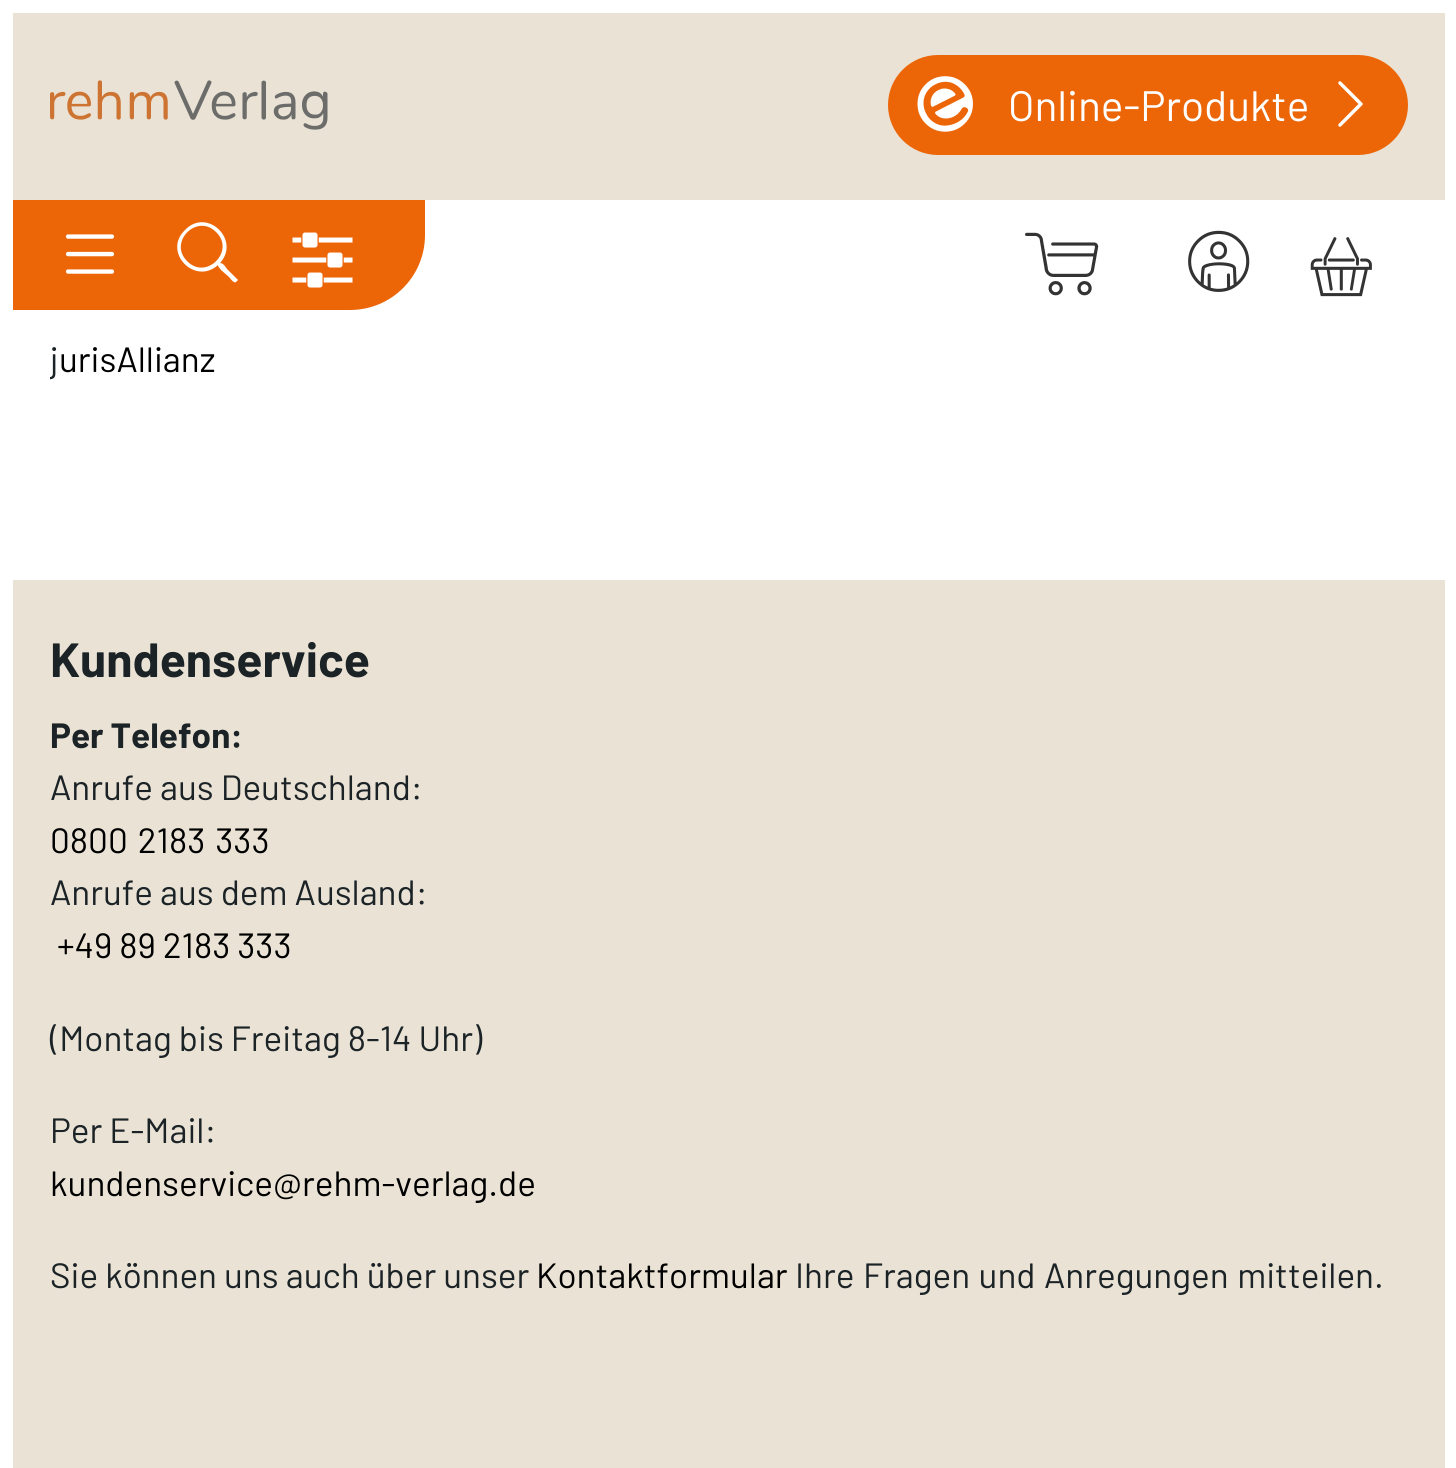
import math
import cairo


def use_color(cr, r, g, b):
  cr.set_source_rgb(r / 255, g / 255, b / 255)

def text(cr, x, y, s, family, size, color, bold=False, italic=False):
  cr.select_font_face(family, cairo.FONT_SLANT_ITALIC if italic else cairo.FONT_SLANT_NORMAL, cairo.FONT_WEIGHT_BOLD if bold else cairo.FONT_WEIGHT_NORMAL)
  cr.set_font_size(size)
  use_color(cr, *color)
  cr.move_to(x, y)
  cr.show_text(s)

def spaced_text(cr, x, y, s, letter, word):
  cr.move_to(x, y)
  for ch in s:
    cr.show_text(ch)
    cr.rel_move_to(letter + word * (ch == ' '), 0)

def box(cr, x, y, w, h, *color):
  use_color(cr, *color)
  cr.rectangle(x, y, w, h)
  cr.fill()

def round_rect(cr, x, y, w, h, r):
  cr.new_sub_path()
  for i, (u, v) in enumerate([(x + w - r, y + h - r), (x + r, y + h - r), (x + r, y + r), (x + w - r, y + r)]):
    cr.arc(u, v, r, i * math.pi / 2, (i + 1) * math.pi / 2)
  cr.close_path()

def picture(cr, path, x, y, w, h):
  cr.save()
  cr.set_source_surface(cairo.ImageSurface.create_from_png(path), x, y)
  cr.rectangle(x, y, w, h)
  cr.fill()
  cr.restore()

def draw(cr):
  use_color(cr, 255, 255, 255)
  cr.paint()
  box(cr, 13, 13, 1432, 187, 234, 227, 213)
  picture(cr, "img_01.png", 50, 80, 278, 50)
  use_color(cr, 236, 102, 8)
  round_rect(cr, 888, 55, 520, 100, 50)
  cr.fill()
  picture(cr, "img_02.png", 917, 76, 56, 56)
  picture(cr, "img_03.png", 1338, 81, 25, 46)
  cr.new_path()
  cr.move_to(13, 200)
  cr.line_to(425, 200)
  cr.line_to(425, 235)
  cr.curve_to(425, 276.5, 391.5, 310, 350, 310)
  cr.line_to(13, 310)
  cr.close_path()
  cr.fill()
  picture(cr, "img_04.png", 65, 234, 50, 40)
  use_color(cr, 255, 255, 255)
  cr.new_path()
  cr.move_to(237, 279)
  cr.line_to(238, 280)
  cr.line_to(236, 282)
  cr.curve_to(234, 284, 230, 278, 229, 277)
  cr.line_to(221, 270)
  cr.curve_to(219, 267, 218, 267, 218, 265)
  cr.curve_to(195, 286, 162, 252, 185, 230)
  cr.curve_to(207, 207, 241, 240, 220, 263)
  cr.curve_to(223, 263, 225, 266, 227, 269)
  cr.close_path()
  cr.move_to(187, 261)
  cr.curve_to(206, 281, 236, 251, 216, 232)
  cr.curve_to(197, 213, 168, 242, 187, 261)
  cr.close_path()
  cr.fill()
  picture(cr, "img_05.png", 292, 232, 61, 56)
  picture(cr, "img_06.png", 1025, 232, 74, 64)
  picture(cr, "img_07.png", 1188, 230, 62, 62)
  picture(cr, "img_08.png", 1310, 237, 62, 60)
  box(cr, 13, 580, 1432, 888, 234, 227, 213)
  text(cr, 1008, 121, "Online-Produkte", "Barlow", 42.5, (255, 255, 255))
  cr.save()
  cr.rectangle(50, 0, 1358, 580)
  cr.clip()
  text(cr, 50, 372, "j", "Barlow", 35.1, (27, 35, 39))
  cr.restore()
  text(cr, 59, 372, "urisAllianz", "Barlow", 35.1, (0, 0, 0))
  text(cr, 50, 677, "Kundenservice", "Barlow", 48, (27, 35, 39), bold=True)
  text(cr, 50, 748, "Per Telefon:", "Barlow", 35.1, (27, 35, 39), bold=True)
  text(cr, 50, 800, "Anrufe aus Deutschland:", "Barlow", 35.1, (27, 35, 39))
  use_color(cr, 0, 0, 0)
  spaced_text(cr, 50, 853, "0800 2183 333", 0, 3)
  text(cr, 50, 905, "Anrufe aus dem Ausland:", "Barlow", 35.1, (27, 35, 39))
  text(cr, 57, 958, "+49 89 2183 333", "Barlow", 35.1, (0, 0, 0))
  text(cr, 50, 1051, "(Montag bis Freitag 8-14 Uhr)", "Barlow", 35.1, (27, 35, 39))
  text(cr, 50, 1143, "Per E-Mail:", "Barlow", 35.1, (27, 35, 39))
  text(cr, 50, 1196, "kundenservice@rehm-verlag.de", "Barlow", 35.1, (0, 0, 0))
  text(cr, 50, 1288, "Sie können uns auch über unser", "Barlow", 35.1, (27, 35, 39))
  text(cr, 536, 1288, "Kontaktformular", "Barlow", 35.1, (0, 0, 0))
  use_color(cr, 27, 35, 39)
  spaced_text(cr, 795, 1288, "Ihre Fragen und Anregungen mitteilen.", 0, 1.5)


surface = cairo.ImageSurface(cairo.FORMAT_RGB24, 1456, 1468)
cr = cairo.Context(surface)
options = cairo.FontOptions()
options.set_hint_metrics(cairo.HINT_METRICS_OFF)
options.set_hint_style(cairo.HINT_STYLE_NONE)
cr.set_font_options(options)
cr.set_miter_limit(4)
draw(cr)
surface.write_to_png("out.png")
